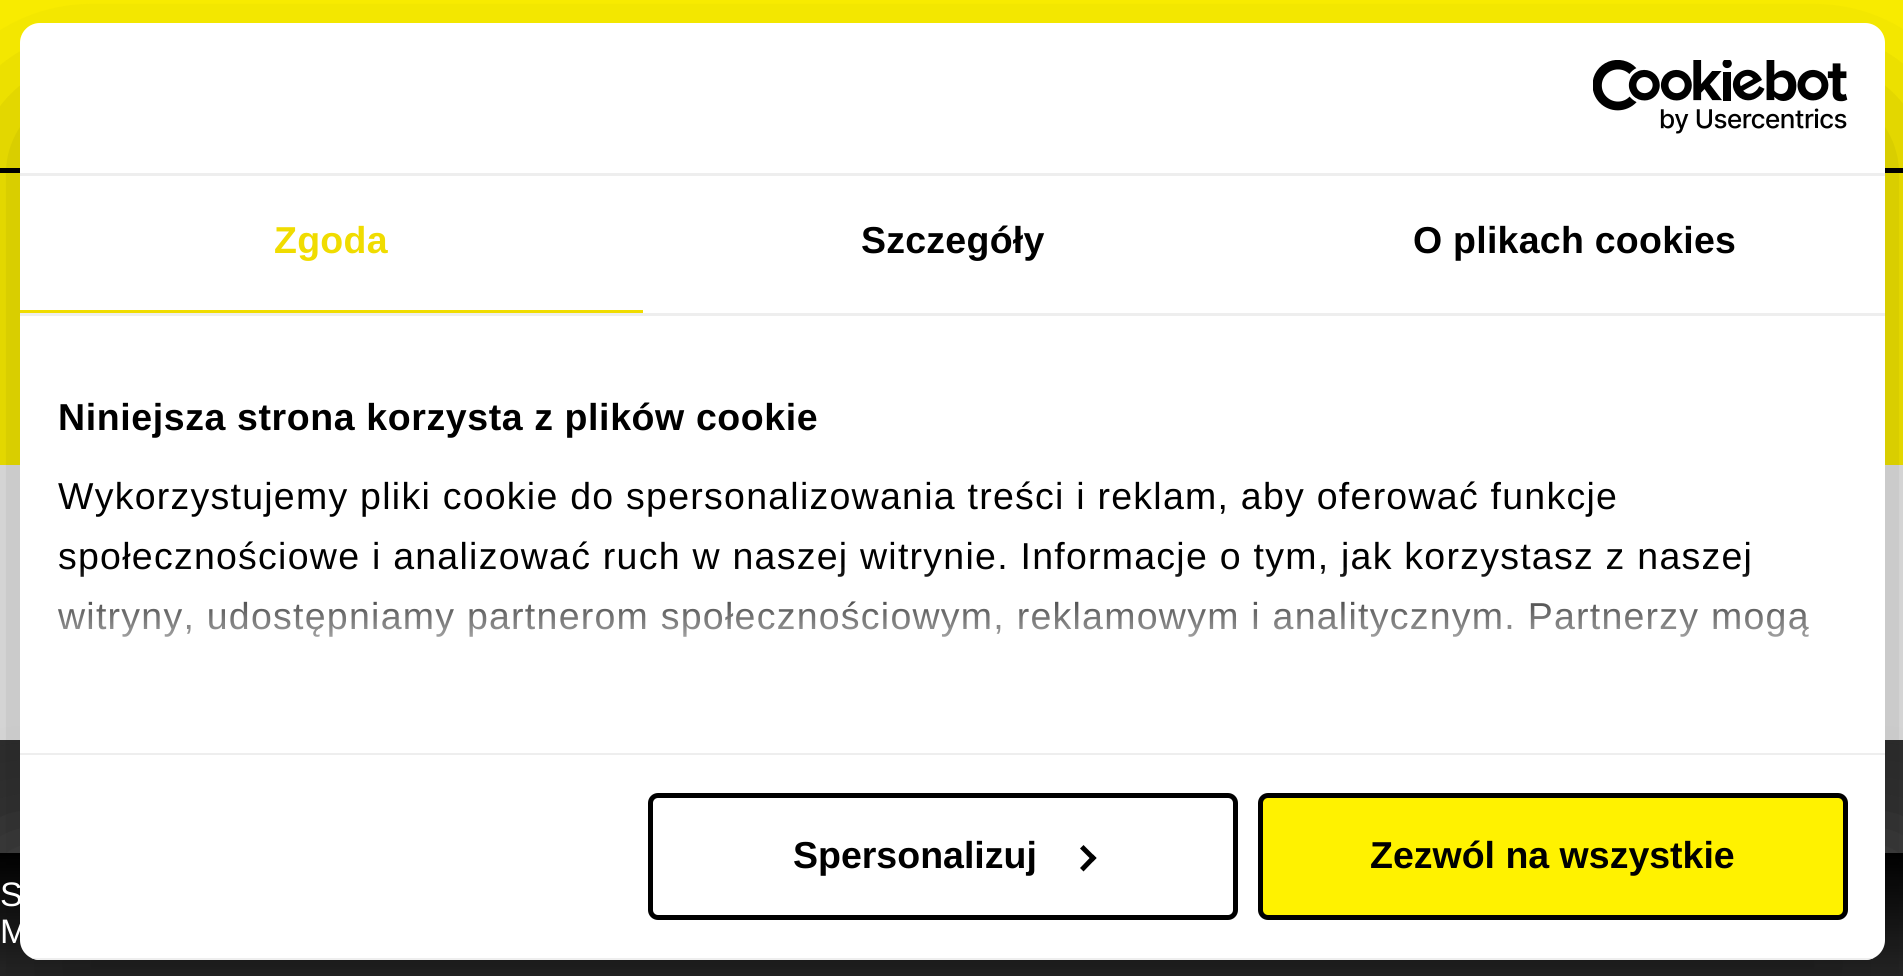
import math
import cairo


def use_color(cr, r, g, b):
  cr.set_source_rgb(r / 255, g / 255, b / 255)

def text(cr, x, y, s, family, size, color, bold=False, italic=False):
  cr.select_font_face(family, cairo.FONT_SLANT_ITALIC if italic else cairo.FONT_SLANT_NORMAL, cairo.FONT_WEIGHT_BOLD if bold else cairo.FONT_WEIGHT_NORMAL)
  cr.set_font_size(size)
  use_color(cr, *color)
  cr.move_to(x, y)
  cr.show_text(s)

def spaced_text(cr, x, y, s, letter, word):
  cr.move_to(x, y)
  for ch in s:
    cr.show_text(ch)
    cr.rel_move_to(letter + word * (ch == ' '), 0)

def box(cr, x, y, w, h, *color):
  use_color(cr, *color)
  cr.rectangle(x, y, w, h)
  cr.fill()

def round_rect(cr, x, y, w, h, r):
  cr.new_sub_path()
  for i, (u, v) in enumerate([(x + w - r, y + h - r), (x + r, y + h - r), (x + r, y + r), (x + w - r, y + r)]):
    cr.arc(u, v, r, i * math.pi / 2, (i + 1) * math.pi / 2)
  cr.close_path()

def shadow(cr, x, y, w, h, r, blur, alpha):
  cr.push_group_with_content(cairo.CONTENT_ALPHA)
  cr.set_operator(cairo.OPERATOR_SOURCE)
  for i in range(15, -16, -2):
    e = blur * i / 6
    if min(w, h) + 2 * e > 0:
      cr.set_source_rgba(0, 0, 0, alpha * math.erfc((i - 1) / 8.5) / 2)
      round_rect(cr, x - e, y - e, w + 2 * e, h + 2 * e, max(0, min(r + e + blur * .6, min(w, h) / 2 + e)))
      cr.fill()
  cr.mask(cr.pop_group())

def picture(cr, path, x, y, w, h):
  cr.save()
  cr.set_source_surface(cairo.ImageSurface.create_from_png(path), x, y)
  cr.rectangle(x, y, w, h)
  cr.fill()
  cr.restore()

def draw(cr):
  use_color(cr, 48, 48, 48)
  cr.paint()
  box(cr, 0, 0, 1903, 465, 255, 242, 0)
  box(cr, 0, 168, 1903, 5, 0, 0, 0)
  box(cr, 0, 465, 1903, 275, 238, 238, 238)
  use_color(cr, 86, 86, 86)
  shadow(cr, 0, 853, 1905, 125, 0, 51, 1)
  gradient = cairo.LinearGradient(953, 852, 953, 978)
  gradient.add_color_stop_rgba(0, 0, 0, 0, 1)
  gradient.add_color_stop_rgba(1, 0.165, 0.165, 0.165, 1)
  cr.set_source(gradient)
  cr.rectangle(0, 853, 1903, 123)
  cr.fill()
  cr.save()
  cr.set_fill_rule(cairo.FILL_RULE_EVEN_ODD)
  cr.new_path()
  cr.move_to(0, 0)
  cr.line_to(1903, 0)
  cr.line_to(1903, 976)
  cr.line_to(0, 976)
  cr.close_path()
  cr.move_to(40, 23)
  cr.line_to(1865, 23)
  cr.curve_to(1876, 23, 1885, 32, 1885, 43)
  cr.line_to(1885, 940)
  cr.curve_to(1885, 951, 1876, 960, 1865, 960)
  cr.line_to(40, 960)
  cr.curve_to(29, 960, 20, 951, 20, 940)
  cr.line_to(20, 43)
  cr.curve_to(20, 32, 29, 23, 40, 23)
  cr.close_path()
  cr.clip()
  use_color(cr, 0, 0, 0)
  shadow(cr, 20, 103, 1865, 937, 20, 85, 0.3)
  cr.restore()
  use_color(cr, 255, 255, 255)
  round_rect(cr, 20, 23, 1865, 937, 20)
  cr.fill()
  box(cr, 20, 173, 1865, 3, 238, 238, 238)
  picture(cr, "img_01.png", 1593, 60, 255, 74)
  box(cr, 20, 313, 1865, 3, 238, 238, 238)
  box(cr, 20, 310, 623, 3, 240, 220, 0)
  box(cr, 20, 753, 1865, 2, 238, 238, 238)
  cr.save()
  round_rect(cr, 20, 23, 1865, 937, 20)
  cr.clip()
  box(cr, 31, 958, 1843, 2, 238, 238, 238)
  cr.restore()
  round_rect(cr, 650.5, 795.5, 585, 122, 7.5)
  use_color(cr, 0, 0, 0)
  cr.set_line_width(5)
  cr.stroke()
  cr.new_path()
  cr.move_to(1083.5, 845)
  cr.line_to(1096.5, 858)
  cr.line_to(1093, 861.5)
  cr.line_to(1080, 848.5)
  cr.close_path()
  cr.fill()
  cr.new_path()
  cr.move_to(1093, 854.5)
  cr.line_to(1096.5, 858)
  cr.line_to(1083.5, 871.5)
  cr.line_to(1080, 868)
  cr.close_path()
  cr.fill()
  use_color(cr, 255, 242, 0)
  round_rect(cr, 1260.5, 795.5, 585, 122, 7.5)
  cr.fill_preserve()
  use_color(cr, 0, 0, 0)
  cr.stroke()
  cr.select_font_face("Liberation Sans", cairo.FONT_SLANT_NORMAL, cairo.FONT_WEIGHT_BOLD)
  cr.set_font_size(37.5)
  use_color(cr, 240, 220, 0)
  spaced_text(cr, 274, 253, "Zgoda", 0.25, 0)
  use_color(cr, 0, 0, 0)
  spaced_text(cr, 861, 253, "Szczegóły", 0.25, 0)
  spaced_text(cr, 1413, 253, "O plikach cookies", 0.25, 0)
  spaced_text(cr, 58, 430, "Niniejsza strona korzysta z plików cookie", 0.6, 0)
  cr.select_font_face("Liberation Sans")
  spaced_text(cr, 58, 509, "Wykorzystujemy pliki cookie do spersonalizowania treści i reklam, aby oferować funkcje", 1.25, 0)
  spaced_text(cr, 58, 569, "społecznościowe i analizować ruch w naszej witrynie. Informacje o tym, jak korzystasz z naszej", 1.25, 0)
  spaced_text(cr, 58, 629, "witryny, udostępniamy partnerom społecznościowym, reklamowym i analitycznym. Partnerzy mogą", 1.25, 0)
  gradient = cairo.LinearGradient(936, 751, 936, 564)
  gradient.add_color_stop_rgba(0, 1, 1, 1, 1)
  gradient.add_color_stop_rgba(0.5, 1, 1, 1, 0.8)
  gradient.add_color_stop_rgba(1, 1, 1, 1, 0)
  cr.set_source(gradient)
  cr.rectangle(57, 567, 1752, 70)
  cr.fill()
  text(cr, 793, 868, "Spersonalizuj", "Liberation Sans", 37.5, (0, 0, 0), bold=True)
  text(cr, 1370, 868, "Zezwól na wszystkie", "Liberation Sans", 37.5, (0, 0, 0), bold=True)
  text(cr, 0, 906, "S", "Liberation Sans", 34, (255, 255, 255))
  text(cr, 0, 943, "M", "Liberation Sans", 34, (255, 255, 255))


surface = cairo.ImageSurface(cairo.FORMAT_RGB24, 1903, 976)
cr = cairo.Context(surface)
options = cairo.FontOptions()
options.set_hint_metrics(cairo.HINT_METRICS_OFF)
options.set_hint_style(cairo.HINT_STYLE_NONE)
cr.set_font_options(options)
cr.set_miter_limit(4)
draw(cr)
surface.write_to_png("out.png")
